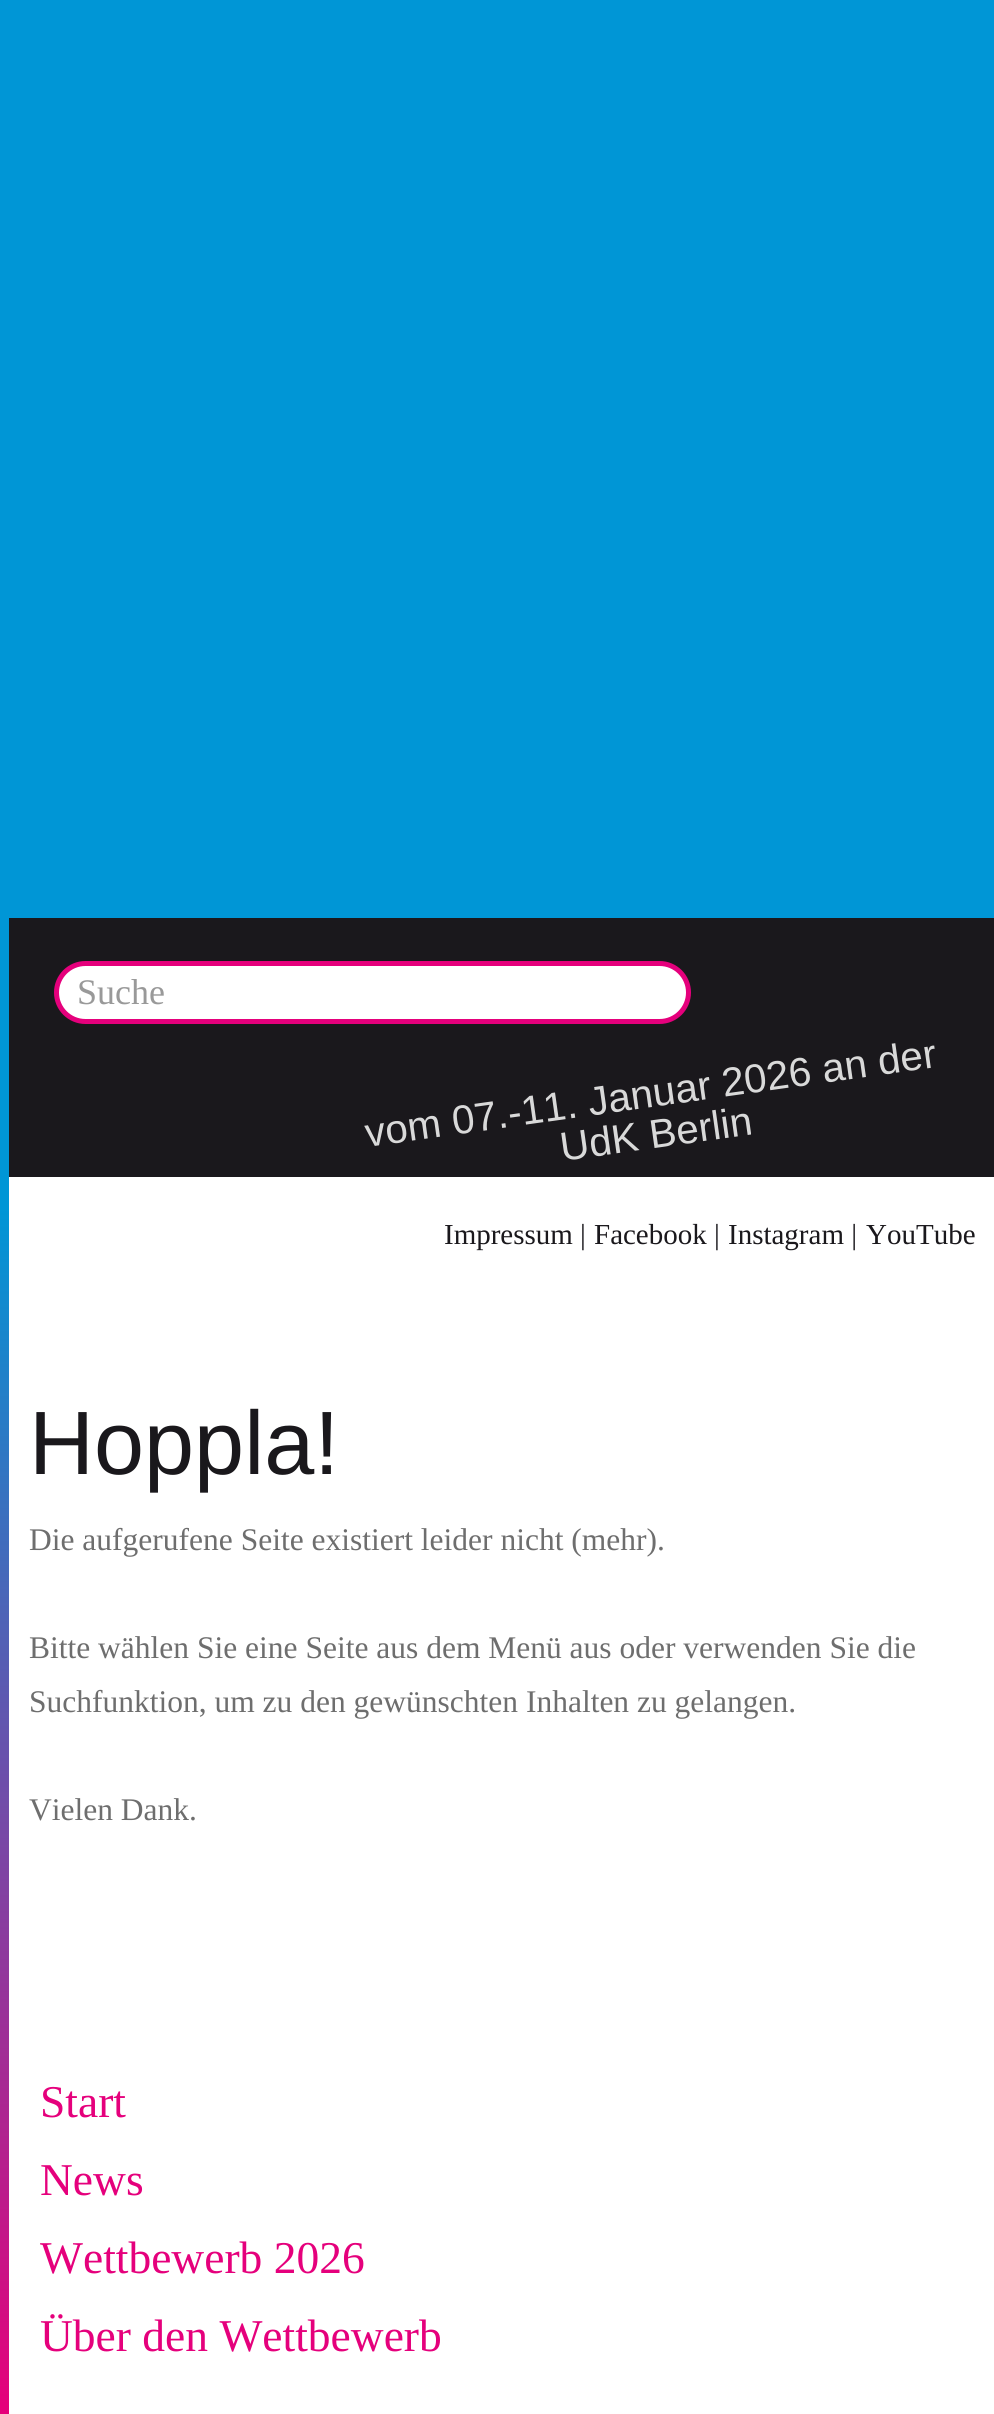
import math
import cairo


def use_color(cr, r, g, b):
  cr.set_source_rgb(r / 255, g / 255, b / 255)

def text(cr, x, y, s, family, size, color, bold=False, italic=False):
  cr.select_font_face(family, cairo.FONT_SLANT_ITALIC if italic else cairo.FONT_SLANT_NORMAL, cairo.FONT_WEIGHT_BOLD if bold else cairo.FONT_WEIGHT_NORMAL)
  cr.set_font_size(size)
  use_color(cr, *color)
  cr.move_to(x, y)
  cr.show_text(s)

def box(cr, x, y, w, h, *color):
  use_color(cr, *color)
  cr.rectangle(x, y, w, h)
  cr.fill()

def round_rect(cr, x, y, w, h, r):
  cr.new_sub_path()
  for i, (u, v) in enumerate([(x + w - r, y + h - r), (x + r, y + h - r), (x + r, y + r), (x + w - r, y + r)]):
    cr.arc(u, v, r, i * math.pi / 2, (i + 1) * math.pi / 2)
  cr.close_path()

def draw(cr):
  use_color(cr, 255, 255, 255)
  cr.paint()
  gradient = cairo.LinearGradient(497, 0, 497, 2414)
  gradient.add_color_stop_rgba(0.5, 0, 0.588, 0.839, 1)
  gradient.add_color_stop_rgba(1, 0.902, 0, 0.478, 1)
  cr.set_source(gradient)
  cr.rectangle(0, 0, 994, 2414)
  cr.fill()
  box(cr, 9, 1177, 985, 1237, 255, 255, 255)
  box(cr, 9, 918, 985, 259, 26, 24, 28)
  use_color(cr, 255, 255, 255)
  round_rect(cr, 56.5, 963.5, 632, 58, 29)
  cr.fill_preserve()
  use_color(cr, 229, 0, 124)
  cr.set_line_width(5)
  cr.stroke()
  text(cr, 77, 1004, "Suche", "Liberation Serif", 36, (153, 153, 153))
  cr.save()
  cr.translate(367, 1147)
  cr.rotate(-8 * math.pi / 180)
  text(cr, 0, 0, "vom 07.-11. Januar 2026 an der", "Liberation Sans", 40.5, (217, 217, 217))
  cr.restore()
  cr.save()
  cr.translate(562, 1161)
  cr.rotate(-8 * math.pi / 180)
  text(cr, 0, 0, "UdK Berlin", "Liberation Sans", 40.5, (217, 217, 217))
  cr.restore()
  text(cr, 444, 1244, "Impressum |", "Liberation Serif", 29, (26, 24, 28))
  text(cr, 594, 1244, "Facebook |", "Liberation Serif", 29, (26, 24, 28))
  text(cr, 728, 1244, "Instagram |", "Liberation Serif", 29, (26, 24, 28))
  text(cr, 866, 1244, "YouTube", "Liberation Serif", 29, (26, 24, 28))
  text(cr, 29, 1474, "Hoppla!", "Liberation Sans", 90, (26, 24, 28))
  text(cr, 29, 1550, "Die aufgerufene Seite existiert leider nicht (mehr).", "Liberation Serif", 31.5, (110, 110, 110))
  text(cr, 29, 1658, "Bitte wählen Sie eine Seite aus dem Menü aus oder verwenden Sie die", "Liberation Serif", 31.5, (110, 110, 110))
  text(cr, 29, 1712, "Suchfunktion, um zu den gewünschten Inhalten zu gelangen.", "Liberation Serif", 31.5, (110, 110, 110))
  text(cr, 29, 1820, "Vielen Dank.", "Liberation Serif", 31.5, (110, 110, 110))
  text(cr, 40, 2117, "Start", "Liberation Serif", 45.5, (229, 0, 124))
  text(cr, 40, 2195, "News", "Liberation Serif", 45.5, (229, 0, 124))
  text(cr, 40, 2273, "Wettbewerb 2026", "Liberation Serif", 45.5, (229, 0, 124))
  text(cr, 40, 2351, "Über den Wettbewerb", "Liberation Serif", 45.5, (229, 0, 124))


surface = cairo.ImageSurface(cairo.FORMAT_RGB24, 994, 2414)
cr = cairo.Context(surface)
options = cairo.FontOptions()
options.set_hint_metrics(cairo.HINT_METRICS_OFF)
options.set_hint_style(cairo.HINT_STYLE_NONE)
cr.set_font_options(options)
cr.set_miter_limit(4)
draw(cr)
surface.write_to_png("out.png")
